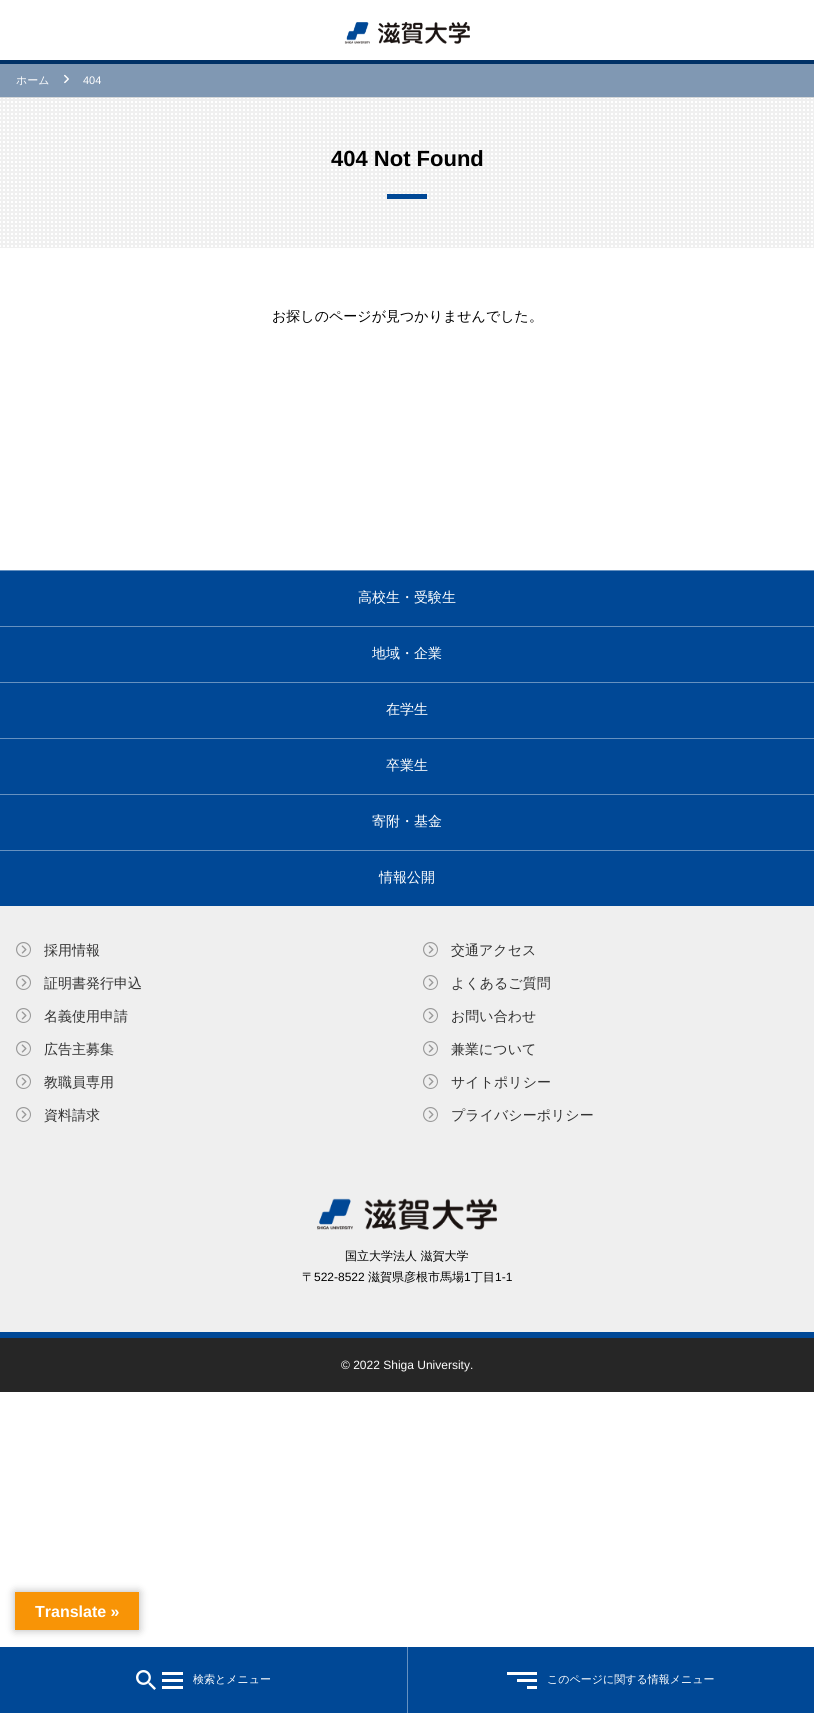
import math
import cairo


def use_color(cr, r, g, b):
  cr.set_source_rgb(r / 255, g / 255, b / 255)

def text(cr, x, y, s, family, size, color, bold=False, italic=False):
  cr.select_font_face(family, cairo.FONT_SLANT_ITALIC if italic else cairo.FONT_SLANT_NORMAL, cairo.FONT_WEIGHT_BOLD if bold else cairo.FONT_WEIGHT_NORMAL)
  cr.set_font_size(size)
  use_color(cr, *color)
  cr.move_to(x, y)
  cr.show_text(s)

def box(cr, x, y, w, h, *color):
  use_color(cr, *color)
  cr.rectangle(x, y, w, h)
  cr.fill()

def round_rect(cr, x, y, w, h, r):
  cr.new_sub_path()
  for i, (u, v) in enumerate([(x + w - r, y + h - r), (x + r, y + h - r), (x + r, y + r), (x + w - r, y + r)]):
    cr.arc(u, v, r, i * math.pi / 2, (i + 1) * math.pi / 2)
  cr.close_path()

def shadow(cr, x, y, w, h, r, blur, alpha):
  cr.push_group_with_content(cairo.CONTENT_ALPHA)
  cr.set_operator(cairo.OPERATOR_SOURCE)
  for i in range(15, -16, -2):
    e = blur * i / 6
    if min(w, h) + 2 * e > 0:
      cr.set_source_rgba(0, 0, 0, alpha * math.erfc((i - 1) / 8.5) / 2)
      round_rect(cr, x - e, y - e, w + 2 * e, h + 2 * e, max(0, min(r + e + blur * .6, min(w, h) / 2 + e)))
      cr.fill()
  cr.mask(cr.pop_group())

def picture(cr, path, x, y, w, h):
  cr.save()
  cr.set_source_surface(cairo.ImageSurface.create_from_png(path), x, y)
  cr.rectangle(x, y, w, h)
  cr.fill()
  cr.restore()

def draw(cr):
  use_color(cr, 255, 255, 255)
  cr.paint()
  box(cr, 0, 60, 814, 4, 0, 49, 102)
  picture(cr, "img_01.png", 344, 22, 126, 22)
  box(cr, 0, 64, 814, 33, 128, 152, 179)
  box(cr, 0, 97, 814, 1, 212, 215, 217)
  picture(cr, "img_02.png", 64, 74, 5, 10)
  picture(cr, "img_03.png", 0, 98, 814, 150)
  box(cr, 387, 194, 40, 5, 0, 72, 150)
  box(cr, 0, 906, 814, 426, 239, 239, 239)
  box(cr, 0, 571, 814, 335, 0, 72, 150)
  box(cr, 0, 570, 814, 1, 102, 145, 192)
  box(cr, 0, 626, 814, 1, 102, 145, 192)
  box(cr, 0, 682, 814, 1, 102, 145, 192)
  box(cr, 0, 738, 814, 1, 102, 145, 192)
  box(cr, 0, 794, 814, 1, 102, 145, 192)
  box(cr, 0, 850, 814, 1, 102, 145, 192)
  picture(cr, "img_04.png", 16, 942, 15, 15)
  picture(cr, "img_04.png", 16, 975, 15, 15)
  picture(cr, "img_04.png", 16, 1008, 15, 15)
  picture(cr, "img_04.png", 16, 1041, 15, 15)
  picture(cr, "img_04.png", 16, 1074, 15, 15)
  picture(cr, "img_04.png", 16, 1107, 15, 15)
  picture(cr, "img_04.png", 423, 942, 15, 15)
  picture(cr, "img_04.png", 423, 975, 15, 15)
  picture(cr, "img_04.png", 423, 1008, 15, 15)
  picture(cr, "img_04.png", 423, 1041, 15, 15)
  picture(cr, "img_04.png", 423, 1074, 15, 15)
  picture(cr, "img_04.png", 423, 1107, 15, 15)
  picture(cr, "img_05.png", 317, 1198, 180, 32)
  box(cr, 0, 1338, 814, 54, 38, 38, 38)
  box(cr, 0, 1332, 814, 6, 0, 72, 150)
  box(cr, 0, 1647, 814, 66, 0, 72, 150)
  picture(cr, "img_06.png", 136, 1670, 47, 20)
  box(cr, 407, 1647, 1, 66, 102, 145, 192)
  box(cr, 507, 1672, 30, 3, 255, 255, 255)
  box(cr, 517, 1679, 20, 3, 255, 255, 255)
  box(cr, 527, 1686, 10, 3, 255, 255, 255)
  use_color(cr, 0, 0, 0)
  shadow(cr, 15, 1592, 124, 38, 0, 4.5, 0.3)
  box(cr, 15, 1592, 124, 38, 248, 148, 6)
  text(cr, 16, 84, "ホーム", "WenQuanYi Zen Hei Medium", 11, (255, 255, 255))
  text(cr, 83, 84, "404", "Liberation Sans", 11, (255, 255, 255))
  text(cr, 331, 166, "404 Not Found", "Liberation Sans", 22, (0, 0, 0), bold=True)
  text(cr, 272, 321, "お探しのページが見つかりませんでした。", "WenQuanYi Zen Hei Medium", 14, (0, 0, 0))
  text(cr, 358, 602, "高校生・受験生", "WenQuanYi Zen Hei Medium", 14, (255, 255, 255))
  text(cr, 372, 658, "地域・企業", "WenQuanYi Zen Hei Medium", 14, (255, 255, 255))
  text(cr, 386, 714, "在学生", "WenQuanYi Zen Hei Medium", 14, (255, 255, 255))
  text(cr, 386, 770, "卒業生", "WenQuanYi Zen Hei Medium", 14, (255, 255, 255))
  text(cr, 372, 826, "寄附・基⾦", "WenQuanYi Zen Hei Medium", 14, (255, 255, 255))
  text(cr, 379, 882, "情報公開", "WenQuanYi Zen Hei Medium", 14, (255, 255, 255))
  text(cr, 44, 955, "採用情報", "WenQuanYi Zen Hei Medium", 14, (51, 51, 51))
  text(cr, 44, 988, "証明書発⾏申込", "WenQuanYi Zen Hei Medium", 14, (51, 51, 51))
  text(cr, 44, 1021, "名義使⽤申請", "WenQuanYi Zen Hei Medium", 14, (51, 51, 51))
  text(cr, 44, 1054, "広告主募集", "WenQuanYi Zen Hei Medium", 14, (51, 51, 51))
  text(cr, 44, 1087, "教職員専⽤", "WenQuanYi Zen Hei Medium", 14, (51, 51, 51))
  text(cr, 44, 1120, "資料請求", "WenQuanYi Zen Hei Medium", 14, (51, 51, 51))
  text(cr, 451, 955, "交通アクセス", "WenQuanYi Zen Hei Medium", 14, (51, 51, 51))
  text(cr, 451, 988, "よくあるご質問", "WenQuanYi Zen Hei Medium", 14, (51, 51, 51))
  text(cr, 451, 1021, "お問い合わせ", "WenQuanYi Zen Hei Medium", 14, (51, 51, 51))
  text(cr, 451, 1054, "兼業について", "WenQuanYi Zen Hei Medium", 14, (51, 51, 51))
  text(cr, 451, 1087, "サイトポリシー", "WenQuanYi Zen Hei Medium", 14, (51, 51, 51))
  text(cr, 451, 1120, "プライバシーポリシー", "WenQuanYi Zen Hei Medium", 14, (51, 51, 51))
  text(cr, 345, 1260, "国⽴⼤学法⼈ 滋賀⼤学", "WenQuanYi Zen Hei Medium", 12, (0, 0, 0))
  text(cr, 302, 1281, "〒", "WenQuanYi Zen Hei Medium", 12, (0, 0, 0))
  text(cr, 314, 1281, "522-8522", "Liberation Sans", 12, (0, 0, 0))
  text(cr, 368, 1281, "滋賀県彦根市⾺場", "WenQuanYi Zen Hei Medium", 12, (0, 0, 0))
  text(cr, 464, 1281, "1", "Liberation Sans", 12, (0, 0, 0))
  text(cr, 471, 1281, "丁⽬", "WenQuanYi Zen Hei Medium", 12, (0, 0, 0))
  text(cr, 495, 1281, "1-1", "Liberation Sans", 12, (0, 0, 0))
  text(cr, 341, 1369, "© 2022 Shiga University.", "Liberation Sans", 12, (255, 255, 255))
  text(cr, 193, 1683, "検索とメニュー", "WenQuanYi Zen Hei Medium", 11, (255, 255, 255))
  text(cr, 547, 1683, "このページに関する情報メニュー", "WenQuanYi Zen Hei Medium", 11, (255, 255, 255))
  text(cr, 35, 1617, "Translate »", "Liberation Sans", 16, (255, 255, 255), bold=True)


surface = cairo.ImageSurface(cairo.FORMAT_RGB24, 814, 1715)
cr = cairo.Context(surface)
options = cairo.FontOptions()
options.set_hint_metrics(cairo.HINT_METRICS_OFF)
options.set_hint_style(cairo.HINT_STYLE_NONE)
cr.set_font_options(options)
cr.set_miter_limit(4)
draw(cr)
surface.write_to_png("out.png")
